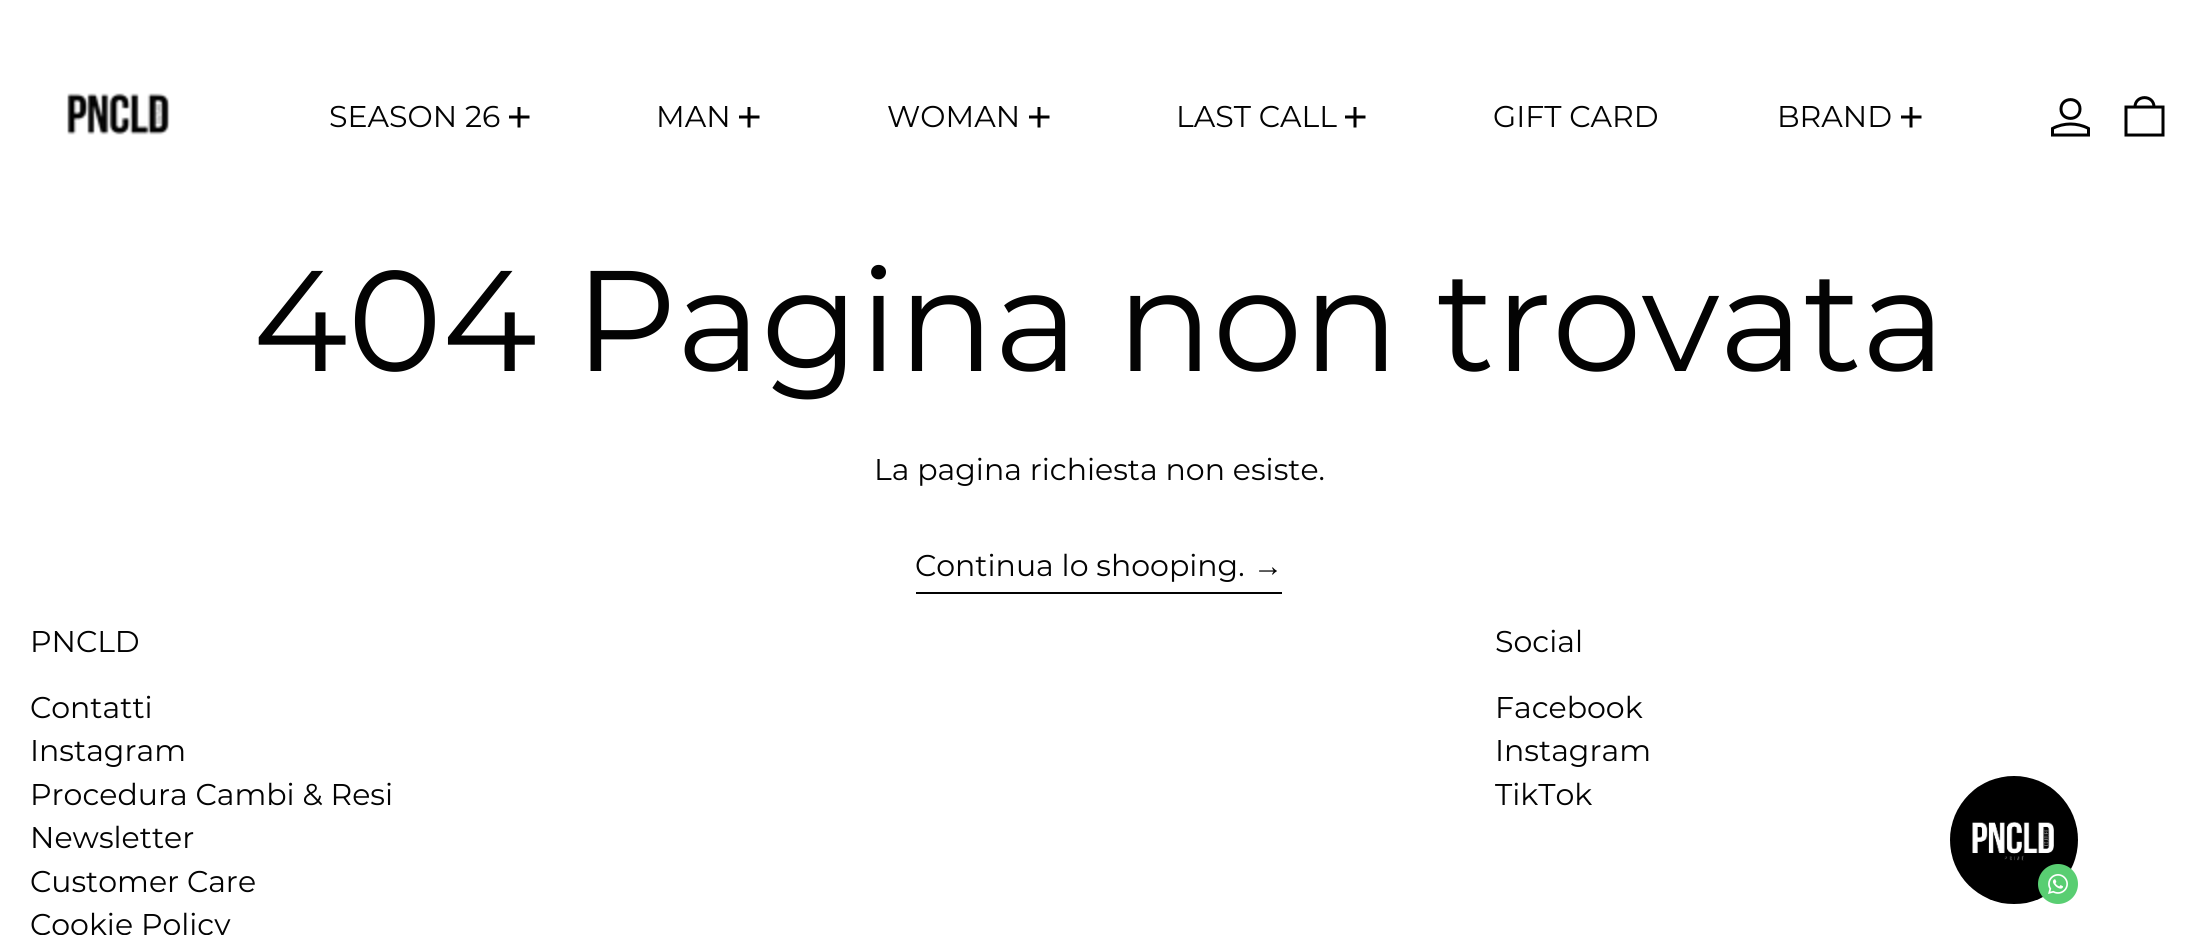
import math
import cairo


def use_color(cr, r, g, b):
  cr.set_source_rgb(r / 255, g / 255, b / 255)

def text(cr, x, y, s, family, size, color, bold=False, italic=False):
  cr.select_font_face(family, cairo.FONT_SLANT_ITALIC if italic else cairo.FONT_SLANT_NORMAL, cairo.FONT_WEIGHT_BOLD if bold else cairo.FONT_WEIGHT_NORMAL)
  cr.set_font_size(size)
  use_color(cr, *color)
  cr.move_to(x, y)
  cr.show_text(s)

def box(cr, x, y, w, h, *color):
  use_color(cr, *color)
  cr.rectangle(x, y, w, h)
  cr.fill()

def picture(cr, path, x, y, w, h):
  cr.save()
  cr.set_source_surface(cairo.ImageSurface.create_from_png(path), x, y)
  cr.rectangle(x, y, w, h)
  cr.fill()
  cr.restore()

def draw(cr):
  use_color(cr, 255, 255, 255)
  cr.paint()
  picture(cr, "img_01.png", 67, 93, 103, 42)
  cr.new_path()
  cr.move_to(519, 107)
  cr.line_to(519, 127.5)
  cr.move_to(509, 117)
  cr.line_to(529.5, 117)
  use_color(cr, 0, 0, 0)
  cr.set_line_width(3)
  cr.stroke()
  cr.new_path()
  cr.move_to(749, 107)
  cr.line_to(749, 127.5)
  cr.move_to(739, 117)
  cr.line_to(759.5, 117)
  cr.stroke()
  cr.new_path()
  cr.move_to(1039, 107)
  cr.line_to(1039, 127.5)
  cr.move_to(1029, 117)
  cr.line_to(1049.5, 117)
  cr.stroke()
  cr.new_path()
  cr.move_to(1355, 107)
  cr.line_to(1355, 127.5)
  cr.move_to(1345, 117)
  cr.line_to(1365.5, 117)
  cr.stroke()
  cr.new_path()
  cr.move_to(1911, 107)
  cr.line_to(1911, 127.5)
  cr.move_to(1901, 117)
  cr.line_to(1921.5, 117)
  cr.stroke()
  cr.new_path()
  cr.move_to(2070.5, 124)
  cr.curve_to(2064.5, 124, 2058, 125.5, 2052.5, 128.5)
  cr.line_to(2052.5, 135)
  cr.line_to(2088.5, 135)
  cr.line_to(2088.5, 128.5)
  cr.curve_to(2083, 125.5, 2076.5, 124, 2070.5, 124)
  cr.close_path()
  cr.move_to(2061, 109)
  cr.curve_to(2061, 121.5, 2080, 121.5, 2080, 109)
  cr.curve_to(2080, 96.5, 2061, 96.5, 2061, 109)
  cr.close_path()
  cr.stroke()
  cr.new_path()
  cr.move_to(2126, 107)
  cr.line_to(2163, 107)
  cr.line_to(2163, 135)
  cr.line_to(2126, 135)
  cr.close_path()
  cr.move_to(2154, 107)
  cr.curve_to(2154, 94.5, 2135, 94.5, 2135, 107)
  cr.stroke()
  box(cr, 916, 592, 366, 2, 3, 3, 3)
  picture(cr, "img_02.png", 1950, 776, 128, 128)
  use_color(cr, 89, 206, 114)
  cr.arc(2058, 884, 20, 0, 2 * math.pi)
  cr.fill()
  picture(cr, "img_03.png", 2048, 874, 20, 20)
  text(cr, 329, 127, "SEASON 26", "Montserrat", 30, (3, 3, 3))
  text(cr, 656, 127, "MAN", "Montserrat", 30, (3, 3, 3))
  text(cr, 887, 127, "WOMAN", "Montserrat", 30, (3, 3, 3))
  text(cr, 1176, 127, "LAST CALL", "Montserrat", 30, (3, 3, 3))
  text(cr, 1493, 127, "GIFT CARD", "Montserrat", 30, (3, 3, 3))
  text(cr, 1777, 127, "BRAND", "Montserrat", 30, (3, 3, 3))
  text(cr, 253, 371, "404 Pagina non trovata", "Montserrat", 143, (3, 3, 3))
  text(cr, 874, 480, "La pagina richiesta non esiste.", "Montserrat", 30, (3, 3, 3))
  text(cr, 915, 576, "Continua lo shooping.", "Montserrat", 30, (3, 3, 3))
  text(cr, 1253, 576, "→", "Liberation Sans", 30, (3, 3, 3))
  text(cr, 30, 652, "PNCLD", "Montserrat", 30, (3, 3, 3))
  text(cr, 30, 718, "Contatti", "Montserrat", 30, (3, 3, 3))
  text(cr, 30, 761, "Instagram", "Montserrat", 30, (3, 3, 3))
  text(cr, 30, 805, "Procedura Cambi & Resi", "Montserrat", 30, (3, 3, 3))
  text(cr, 30, 848, "Newsletter", "Montserrat", 30, (3, 3, 3))
  text(cr, 30, 892, "Customer Care", "Montserrat", 30, (3, 3, 3))
  text(cr, 30, 935, "Cookie Policy", "Montserrat", 30, (3, 3, 3))
  text(cr, 1495, 652, "Social", "Montserrat", 30, (3, 3, 3))
  text(cr, 1495, 718, "Facebook", "Montserrat", 30, (3, 3, 3))
  text(cr, 1495, 761, "Instagram", "Montserrat", 30, (3, 3, 3))
  text(cr, 1495, 805, "TikTok", "Montserrat", 30, (3, 3, 3))


surface = cairo.ImageSurface(cairo.FORMAT_RGB24, 2197, 935)
cr = cairo.Context(surface)
options = cairo.FontOptions()
options.set_hint_metrics(cairo.HINT_METRICS_OFF)
options.set_hint_style(cairo.HINT_STYLE_NONE)
cr.set_font_options(options)
cr.set_miter_limit(4)
draw(cr)
surface.write_to_png("out.png")
